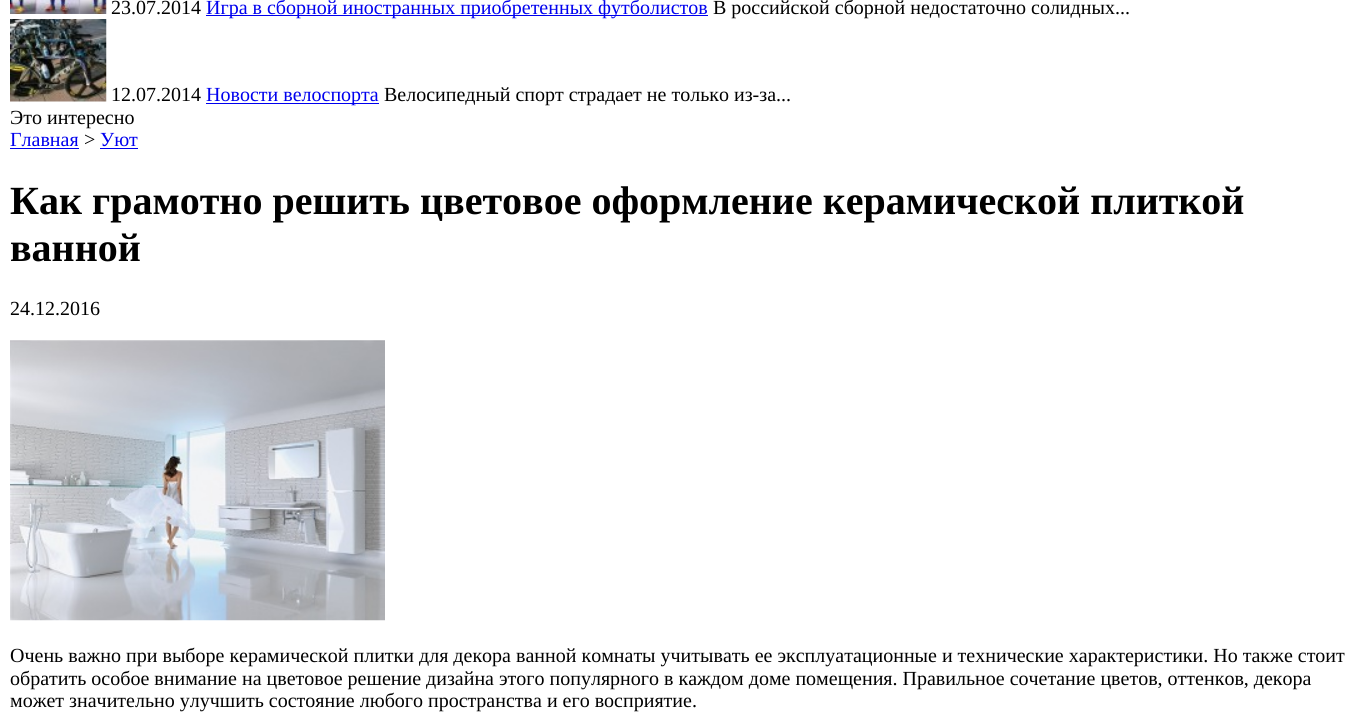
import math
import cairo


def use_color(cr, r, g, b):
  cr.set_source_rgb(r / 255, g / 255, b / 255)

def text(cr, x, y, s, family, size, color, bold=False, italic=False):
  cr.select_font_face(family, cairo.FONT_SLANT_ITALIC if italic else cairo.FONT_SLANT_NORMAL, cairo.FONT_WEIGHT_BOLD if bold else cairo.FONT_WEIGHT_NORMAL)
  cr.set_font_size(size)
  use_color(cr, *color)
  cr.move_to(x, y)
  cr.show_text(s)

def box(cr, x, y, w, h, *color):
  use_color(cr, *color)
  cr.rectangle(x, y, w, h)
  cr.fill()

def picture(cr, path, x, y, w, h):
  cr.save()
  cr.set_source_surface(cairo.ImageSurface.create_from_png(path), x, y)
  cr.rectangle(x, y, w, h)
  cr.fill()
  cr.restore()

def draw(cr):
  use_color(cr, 255, 255, 255)
  cr.paint()
  picture(cr, "img_01.png", 10, 0, 97, 14)
  box(cr, 206, 15, 502, 1, 0, 0, 238)
  picture(cr, "img_02.png", 10, 19, 97, 83)
  box(cr, 206, 103, 173, 1, 0, 0, 238)
  box(cr, 10, 148, 69, 1, 0, 0, 238)
  box(cr, 100, 148, 38, 1, 0, 0, 238)
  picture(cr, "img_03.png", 10, 340, 375, 281)
  text(cr, 111, 14, "23.07.2014", "Liberation Serif", 20, (0, 0, 0))
  text(cr, 206, 14, "Игра в сборной иностранных приобретенных футболистов", "Liberation Serif", 20, (0, 0, 238))
  text(cr, 713, 14, "В российской сборной недостаточно солидных...", "Liberation Serif", 20, (0, 0, 0))
  text(cr, 111, 101, "12.07.2014", "Liberation Serif", 20, (0, 0, 0))
  text(cr, 206, 101, "Новости велоспорта", "Liberation Serif", 20, (0, 0, 238))
  text(cr, 384, 101, "Велосипедный спорт страдает не только из-за...", "Liberation Serif", 20, (0, 0, 0))
  text(cr, 10, 124, "Это интересно", "Liberation Serif", 20, (0, 0, 0))
  text(cr, 10, 146, "Главная", "Liberation Serif", 20, (0, 0, 238))
  text(cr, 84, 146, ">", "Liberation Serif", 20, (0, 0, 0))
  text(cr, 100, 146, "Уют", "Liberation Serif", 20, (0, 0, 238))
  text(cr, 10, 214, "Как грамотно решить цветовое оформление керамической плиткой", "Liberation Serif", 40, (0, 0, 0), bold=True)
  text(cr, 10, 261, "ванной", "Liberation Serif", 40, (0, 0, 0), bold=True)
  text(cr, 10, 315, "24.12.2016", "Liberation Serif", 20, (0, 0, 0))
  text(cr, 10, 662, "Очень важно при выборе керамической плитки для декора ванной комнаты учитывать ее эксплуатационные и технические характеристики. Но также стоит", "Liberation Serif", 20, (0, 0, 0))
  text(cr, 10, 685, "обратить особое внимание на цветовое решение дизайна этого популярного в каждом доме помещения. Правильное сочетание цветов, оттенков, декора", "Liberation Serif", 20, (0, 0, 0))
  text(cr, 10, 707, "может значительно улучшить состояние любого пространства и его восприятие.", "Liberation Serif", 20, (0, 0, 0))


surface = cairo.ImageSurface(cairo.FORMAT_RGB24, 1361, 724)
cr = cairo.Context(surface)
options = cairo.FontOptions()
options.set_hint_metrics(cairo.HINT_METRICS_OFF)
options.set_hint_style(cairo.HINT_STYLE_NONE)
cr.set_font_options(options)
cr.set_miter_limit(4)
draw(cr)
surface.write_to_png("out.png")
